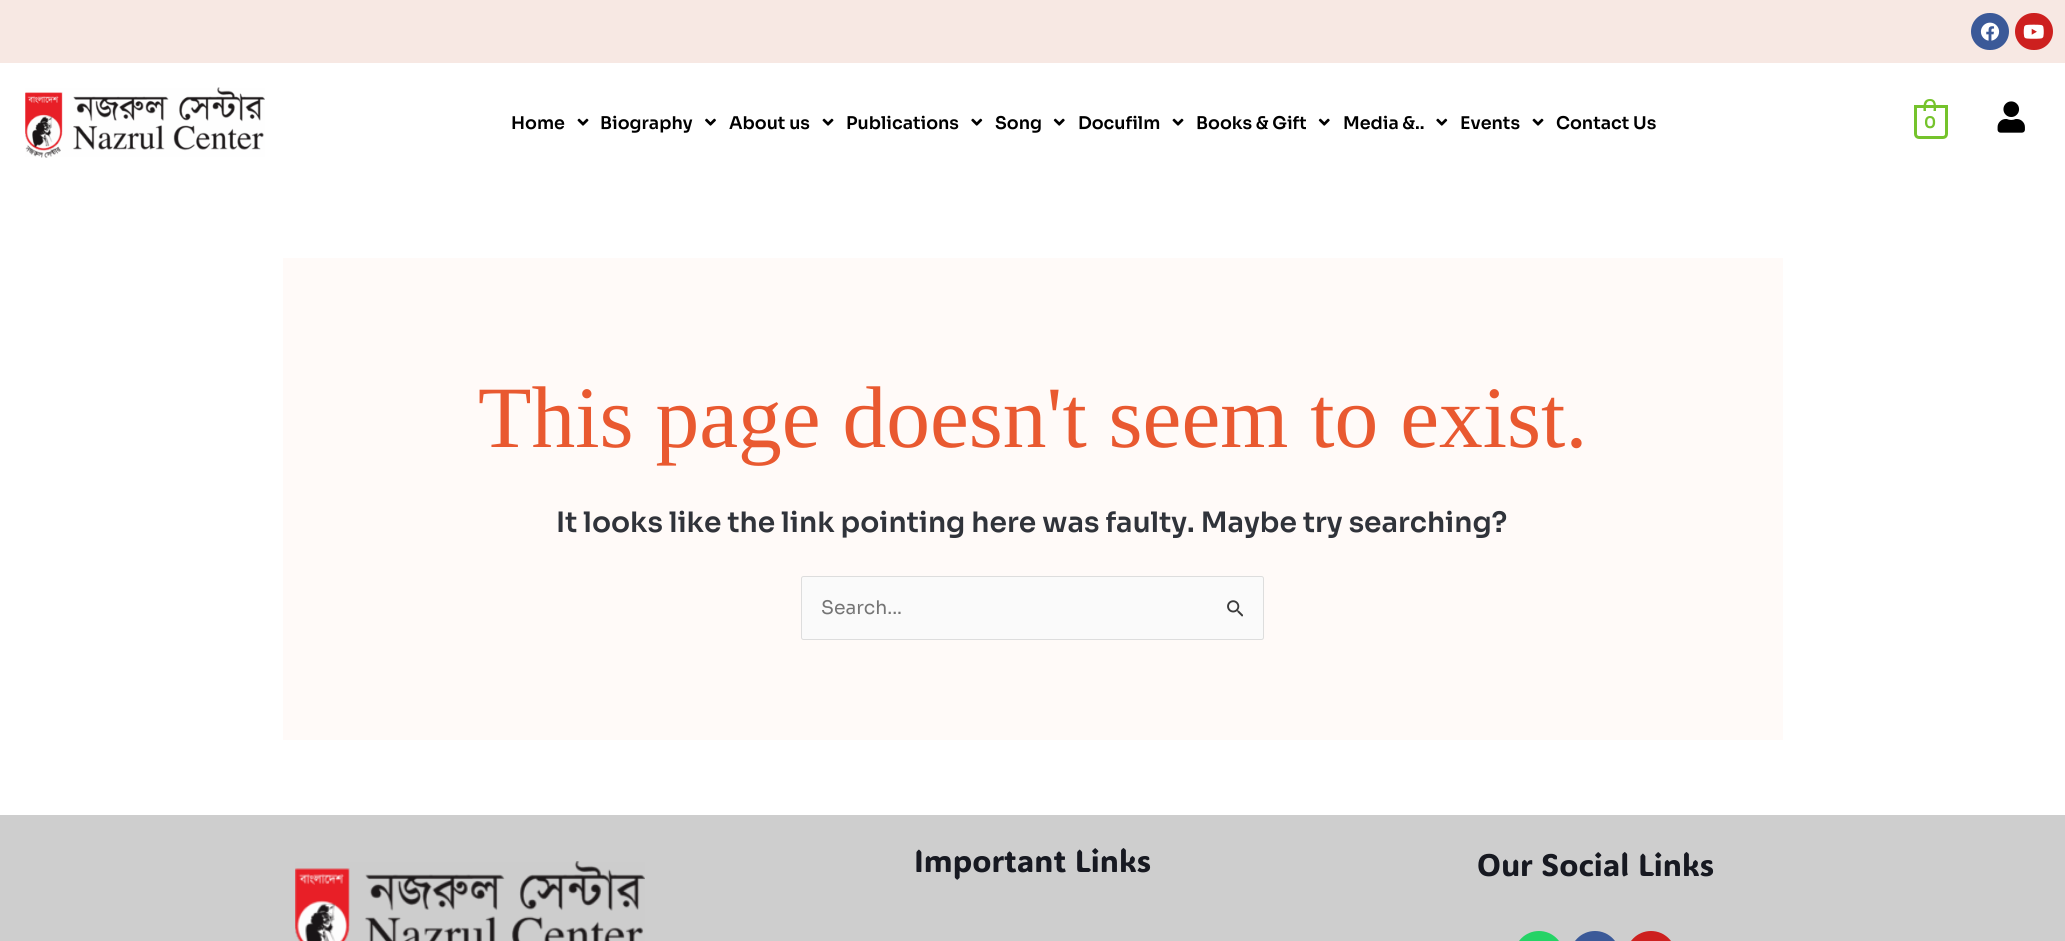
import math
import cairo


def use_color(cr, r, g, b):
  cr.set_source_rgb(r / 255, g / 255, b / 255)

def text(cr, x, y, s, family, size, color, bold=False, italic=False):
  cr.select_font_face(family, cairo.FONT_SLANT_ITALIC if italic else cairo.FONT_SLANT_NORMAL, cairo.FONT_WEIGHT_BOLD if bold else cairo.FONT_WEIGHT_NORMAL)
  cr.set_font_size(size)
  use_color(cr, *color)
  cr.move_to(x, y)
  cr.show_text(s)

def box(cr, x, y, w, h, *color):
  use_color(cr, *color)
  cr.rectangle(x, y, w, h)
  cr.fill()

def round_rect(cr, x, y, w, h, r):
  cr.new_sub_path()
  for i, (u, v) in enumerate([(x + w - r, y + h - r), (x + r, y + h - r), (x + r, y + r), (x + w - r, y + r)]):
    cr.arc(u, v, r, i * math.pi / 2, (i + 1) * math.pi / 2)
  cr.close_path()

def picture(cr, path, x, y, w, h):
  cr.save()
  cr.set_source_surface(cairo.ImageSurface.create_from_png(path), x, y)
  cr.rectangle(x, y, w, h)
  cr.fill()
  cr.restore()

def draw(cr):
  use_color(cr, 255, 255, 255)
  cr.paint()
  box(cr, 0, 0, 2065, 63, 247, 232, 227)
  use_color(cr, 59, 89, 152)
  round_rect(cr, 1971, 13, 38, 37, 18.5)
  cr.fill()
  picture(cr, "img_01.png", 1980, 22, 20, 19)
  use_color(cr, 205, 32, 31)
  round_rect(cr, 2015, 13, 38, 37, 18.5)
  cr.fill()
  picture(cr, "img_02.png", 2023, 24, 21, 15)
  picture(cr, "img_03.png", 25, 87, 240, 71)
  picture(cr, "img_04.png", 577, 118, 12, 8)
  picture(cr, "img_05.png", 705, 118, 11, 8)
  picture(cr, "img_04.png", 822, 118, 12, 8)
  picture(cr, "img_06.png", 971, 118, 12, 8)
  picture(cr, "img_07.png", 1053, 118, 12, 8)
  picture(cr, "img_04.png", 1172, 118, 12, 8)
  picture(cr, "img_07.png", 1318, 118, 12, 8)
  picture(cr, "img_06.png", 1436, 118, 12, 8)
  picture(cr, "img_04.png", 1532, 118, 12, 8)
  cr.new_path()
  cr.move_to(1915.5, 106.5)
  cr.line_to(1946.5, 106.5)
  cr.line_to(1946.5, 134)
  cr.curve_to(1946.5, 136, 1945, 137.5, 1943, 137.5)
  cr.line_to(1919, 137.5)
  cr.curve_to(1917, 137.5, 1915.5, 136, 1915.5, 134)
  cr.close_path()
  use_color(cr, 117, 195, 44)
  cr.set_line_width(3)
  cr.stroke()
  cr.set_fill_rule(cairo.FILL_RULE_EVEN_ODD)
  cr.new_path()
  cr.move_to(1930, 99)
  cr.curve_to(1937, 99, 1936, 106.5, 1936, 111)
  cr.line_to(1923.5, 111)
  cr.curve_to(1923.5, 106.5, 1922.5, 99, 1930, 99)
  cr.close_path()
  cr.move_to(1930, 101)
  cr.curve_to(1935, 101, 1933.5, 108, 1933.5, 111)
  cr.line_to(1926, 111)
  cr.curve_to(1926, 108, 1925, 101, 1930, 101)
  cr.close_path()
  cr.fill()
  picture(cr, "img_08.png", 1997, 101, 28, 32)
  box(cr, 283, 258, 1500, 482, 255, 250, 248)
  use_color(cr, 250, 250, 250)
  round_rect(cr, 801.5, 576.5, 462, 63, 2)
  cr.fill_preserve()
  use_color(cr, 221, 221, 221)
  cr.set_line_width(1)
  cr.stroke()
  picture(cr, "img_09.png", 1227, 600, 16, 17)
  box(cr, 0, 815, 2065, 126, 206, 206, 206)
  picture(cr, "img_10.png", 295, 861, 350, 80)
  use_color(cr, 37, 211, 102)
  round_rect(cr, 1514, 931, 50, 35, 25)
  cr.fill()
  use_color(cr, 59, 89, 152)
  round_rect(cr, 1570, 931, 50, 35, 25)
  cr.fill()
  use_color(cr, 205, 32, 31)
  round_rect(cr, 1626, 931, 50, 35, 25)
  cr.fill()
  text(cr, 511, 129, "Home", "Sora SemiBold", 17.5, (0, 0, 0))
  text(cr, 600, 129, "Biography", "Sora SemiBold", 17.5, (0, 0, 0))
  text(cr, 729, 129, "About us", "Sora SemiBold", 17.5, (0, 0, 0))
  text(cr, 846, 129, "Publications", "Sora SemiBold", 17.5, (0, 0, 0))
  text(cr, 995, 129, "Song", "Sora SemiBold", 17.5, (0, 0, 0))
  text(cr, 1078, 129, "Docufilm", "Sora SemiBold", 17.5, (0, 0, 0))
  text(cr, 1196, 129, "Books & Gift", "Sora SemiBold", 17.5, (0, 0, 0))
  text(cr, 1343, 129, "Media &..", "Sora SemiBold", 17.5, (0, 0, 0))
  text(cr, 1460, 129, "Events", "Sora SemiBold", 17.5, (0, 0, 0))
  text(cr, 1556, 129, "Contact Us", "Sora SemiBold", 17.5, (0, 0, 0))
  text(cr, 1924, 128, "0", "Sora SemiBold", 16, (117, 195, 44))
  text(cr, 478, 447, "This page doesn't seem to exist.", "Liberation Serif", 87.5, (233, 89, 48))
  text(cr, 556, 532, "It looks like the link pointing here was faulty. Maybe try searching?", "Sora SemiBold", 28.1, (48, 51, 58))
  text(cr, 821, 614, "Search...", "Sora", 18.75, (117, 117, 117))
  text(cr, 914, 872, "Important Links", "ADLaM Display", 31.25, (23, 25, 33))
  text(cr, 1477, 876, "Our Social Links", "ADLaM Display", 31.25, (23, 25, 33))


surface = cairo.ImageSurface(cairo.FORMAT_RGB24, 2065, 941)
cr = cairo.Context(surface)
options = cairo.FontOptions()
options.set_hint_metrics(cairo.HINT_METRICS_OFF)
options.set_hint_style(cairo.HINT_STYLE_NONE)
cr.set_font_options(options)
cr.set_miter_limit(4)
draw(cr)
surface.write_to_png("out.png")
